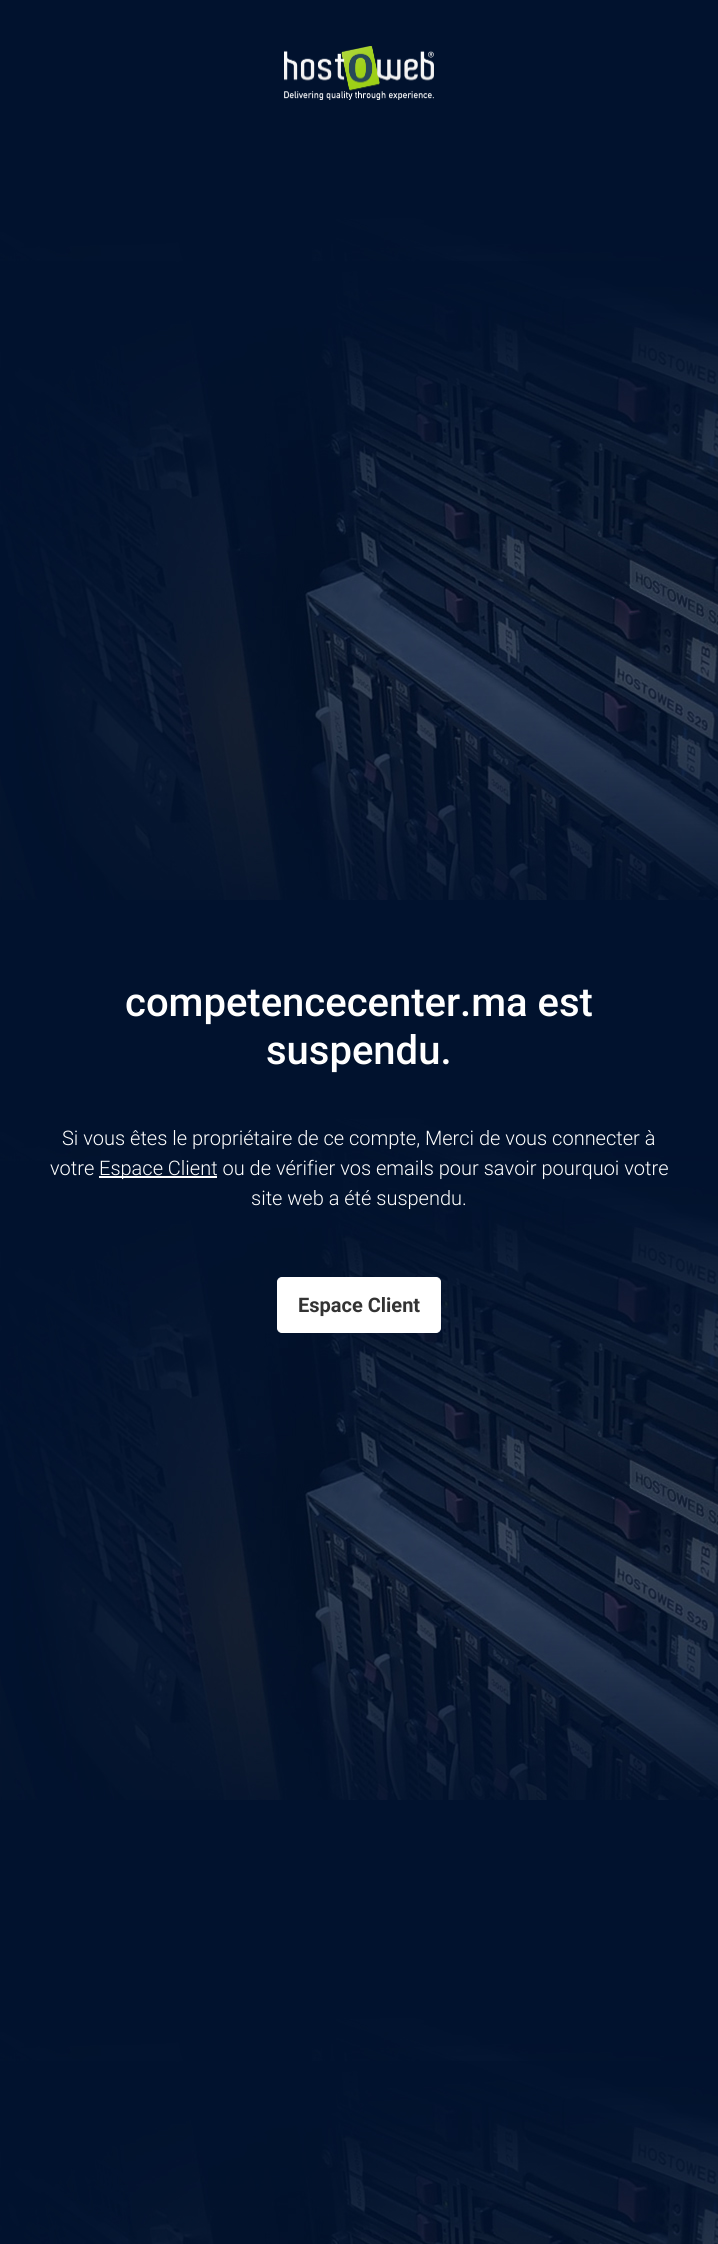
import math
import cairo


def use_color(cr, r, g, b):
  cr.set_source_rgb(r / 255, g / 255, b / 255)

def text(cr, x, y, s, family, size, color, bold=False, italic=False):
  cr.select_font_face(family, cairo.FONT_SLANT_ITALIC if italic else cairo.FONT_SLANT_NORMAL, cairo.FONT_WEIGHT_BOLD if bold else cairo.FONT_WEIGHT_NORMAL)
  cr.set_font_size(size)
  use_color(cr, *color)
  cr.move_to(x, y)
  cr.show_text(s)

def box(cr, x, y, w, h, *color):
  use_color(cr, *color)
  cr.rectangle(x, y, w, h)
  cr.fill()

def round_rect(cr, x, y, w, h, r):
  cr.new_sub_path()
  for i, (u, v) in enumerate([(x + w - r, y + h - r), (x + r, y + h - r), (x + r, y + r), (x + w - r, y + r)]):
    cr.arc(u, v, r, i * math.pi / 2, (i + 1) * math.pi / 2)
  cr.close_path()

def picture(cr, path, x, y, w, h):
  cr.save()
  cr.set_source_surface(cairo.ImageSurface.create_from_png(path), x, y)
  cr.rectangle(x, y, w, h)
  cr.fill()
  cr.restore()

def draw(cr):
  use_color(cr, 255, 255, 255)
  cr.paint()
  picture(cr, "img_01.png", 0, 0, 718, 2244)
  picture(cr, "img_02.png", 284, 46, 150, 54)
  box(cr, 99, 1176, 118, 2, 255, 255, 255)
  round_rect(cr, 277.5, 1277.5, 163, 55, 4.5)
  cr.fill_preserve()
  cr.set_line_width(1)
  cr.stroke()
  text(cr, 125, 1016, "competencecenter.ma est", "Roboto Medium", 40, (255, 255, 255))
  text(cr, 266, 1064, "suspendu.", "Roboto Medium", 40, (255, 255, 255))
  text(cr, 62, 1145, "Si vous êtes le propriétaire de ce compte, Merci de vous connecter à", "Roboto Light", 20, (255, 255, 255))
  text(cr, 50, 1175, "votre", "Roboto Light", 20, (255, 255, 255))
  text(cr, 99, 1175, "Espace Client ou de vérifier vos emails pour savoir pourquoi votre", "Roboto Light", 20, (255, 255, 255))
  text(cr, 251, 1205, "site web a été suspendu.", "Roboto Light", 20, (255, 255, 255))
  text(cr, 298, 1312, "Espace Client", "Roboto", 20, (51, 51, 51), bold=True)


surface = cairo.ImageSurface(cairo.FORMAT_RGB24, 718, 2244)
cr = cairo.Context(surface)
options = cairo.FontOptions()
options.set_hint_metrics(cairo.HINT_METRICS_OFF)
options.set_hint_style(cairo.HINT_STYLE_NONE)
cr.set_font_options(options)
cr.set_miter_limit(4)
draw(cr)
surface.write_to_png("out.png")
